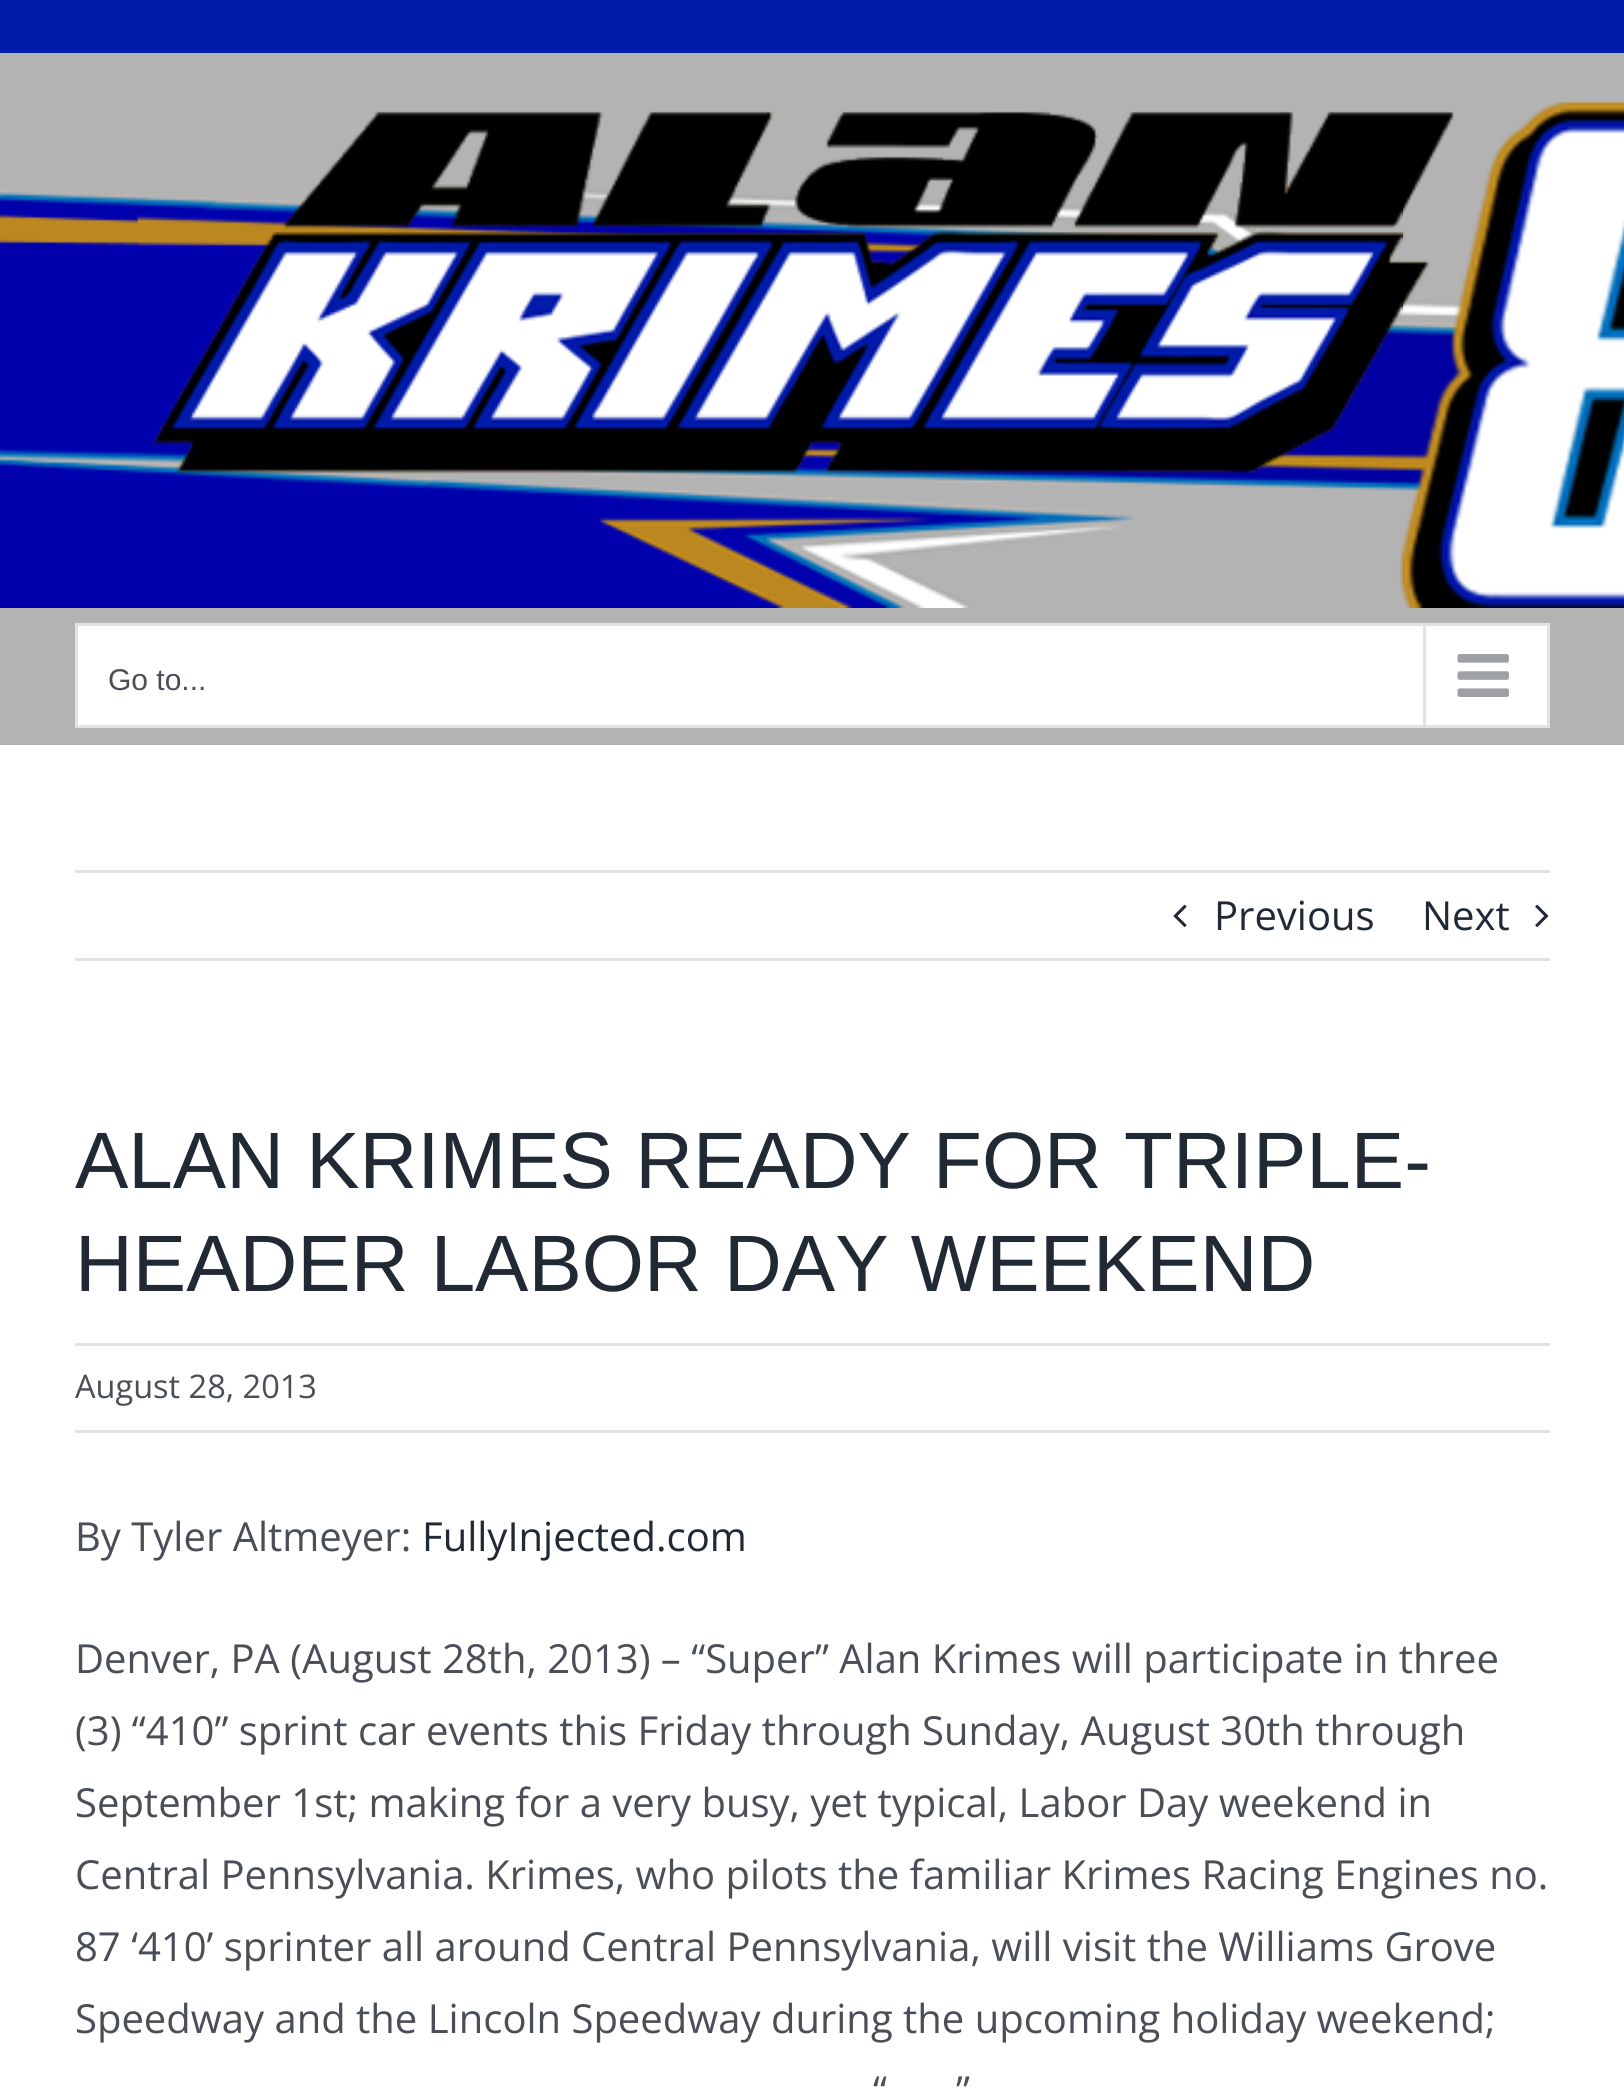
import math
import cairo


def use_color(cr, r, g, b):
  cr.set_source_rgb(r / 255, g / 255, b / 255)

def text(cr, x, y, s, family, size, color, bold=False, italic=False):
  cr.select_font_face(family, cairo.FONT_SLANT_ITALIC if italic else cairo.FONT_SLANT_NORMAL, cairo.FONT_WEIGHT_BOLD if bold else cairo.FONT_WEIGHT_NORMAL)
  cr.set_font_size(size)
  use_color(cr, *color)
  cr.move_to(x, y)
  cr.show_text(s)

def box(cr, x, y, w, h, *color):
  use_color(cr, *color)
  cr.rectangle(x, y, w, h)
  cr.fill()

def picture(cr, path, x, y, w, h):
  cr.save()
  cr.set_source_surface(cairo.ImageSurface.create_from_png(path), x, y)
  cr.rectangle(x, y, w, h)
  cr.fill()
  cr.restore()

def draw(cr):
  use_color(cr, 255, 255, 255)
  cr.paint()
  box(cr, 0, 0, 1624, 53, 0, 27, 170)
  box(cr, 0, 53, 1624, 48, 179, 179, 179)
  picture(cr, "img_01.png", 0, 101, 1624, 507)
  picture(cr, "img_02.png", 152, 111, 1302, 363)
  box(cr, 0, 608, 1624, 137, 179, 179, 179)
  use_color(cr, 255, 255, 255)
  cr.rectangle(76.5, 624.5, 1472, 102)
  cr.fill_preserve()
  use_color(cr, 226, 226, 226)
  cr.set_line_width(3)
  cr.stroke()
  box(cr, 1423, 625, 3, 100, 226, 226, 226)
  picture(cr, "img_03.png", 1457, 654, 52, 43)
  box(cr, 75, 870, 1475, 3, 226, 226, 226)
  box(cr, 75, 958, 1475, 3, 226, 226, 226)
  picture(cr, "img_04.png", 1173, 904, 14, 23)
  picture(cr, "img_05.png", 1535, 904, 14, 23)
  box(cr, 75, 1343, 1475, 3, 226, 226, 226)
  box(cr, 75, 1430, 1475, 3, 226, 226, 226)
  text(cr, 108, 690, "Go to...", "Liberation Sans", 30, (74, 78, 87))
  text(cr, 1214, 930, "Previous", "Open Sans", 40, (33, 41, 52))
  text(cr, 1422, 930, "Next", "Open Sans", 40, (33, 41, 52))
  text(cr, 75, 1188, "ALAN KRIMES READY FOR TRIPLE-", "Liberation Sans", 80, (33, 41, 52))
  text(cr, 75, 1291, "HEADER LABOR DAY WEEKEND", "Liberation Sans", 80, (33, 41, 52))
  text(cr, 75, 1398, "August 28, 2013", "Open Sans", 32.5, (74, 78, 87))
  text(cr, 75, 1551, "By Tyler Altmeyer:", "Open Sans", 40, (74, 78, 87))
  text(cr, 422, 1551, "FullyInjected.com", "Open Sans", 40, (33, 41, 52))
  text(cr, 75, 1673, "Denver, PA (August 28th, 2013) – “Super” Alan Krimes will participate in three", "Open Sans", 40, (74, 78, 87))
  text(cr, 75, 1745, "(3) “410” sprint car events this Friday through Sunday, August 30th through", "Open Sans", 40, (74, 78, 87))
  text(cr, 75, 1817, "September 1st; making for a very busy, yet typical, Labor Day weekend in", "Open Sans", 40, (74, 78, 87))
  text(cr, 75, 1889, "Central Pennsylvania. Krimes, who pilots the familiar Krimes Racing Engines no.", "Open Sans", 40, (74, 78, 87))
  text(cr, 75, 1961, "87 ‘410’ sprinter all around Central Pennsylvania, will visit the Williams Grove", "Open Sans", 40, (74, 78, 87))
  text(cr, 75, 2033, "Speedway and the Lincoln Speedway during the upcoming holiday weekend;", "Open Sans", 40, (74, 78, 87))
  text(cr, 873, 2105, "“", "Open Sans", 40, (74, 78, 87))
  text(cr, 956, 2105, "”", "Open Sans", 40, (74, 78, 87))


surface = cairo.ImageSurface(cairo.FORMAT_RGB24, 1624, 2094)
cr = cairo.Context(surface)
options = cairo.FontOptions()
options.set_hint_metrics(cairo.HINT_METRICS_OFF)
options.set_hint_style(cairo.HINT_STYLE_NONE)
cr.set_font_options(options)
cr.set_miter_limit(4)
draw(cr)
surface.write_to_png("out.png")
